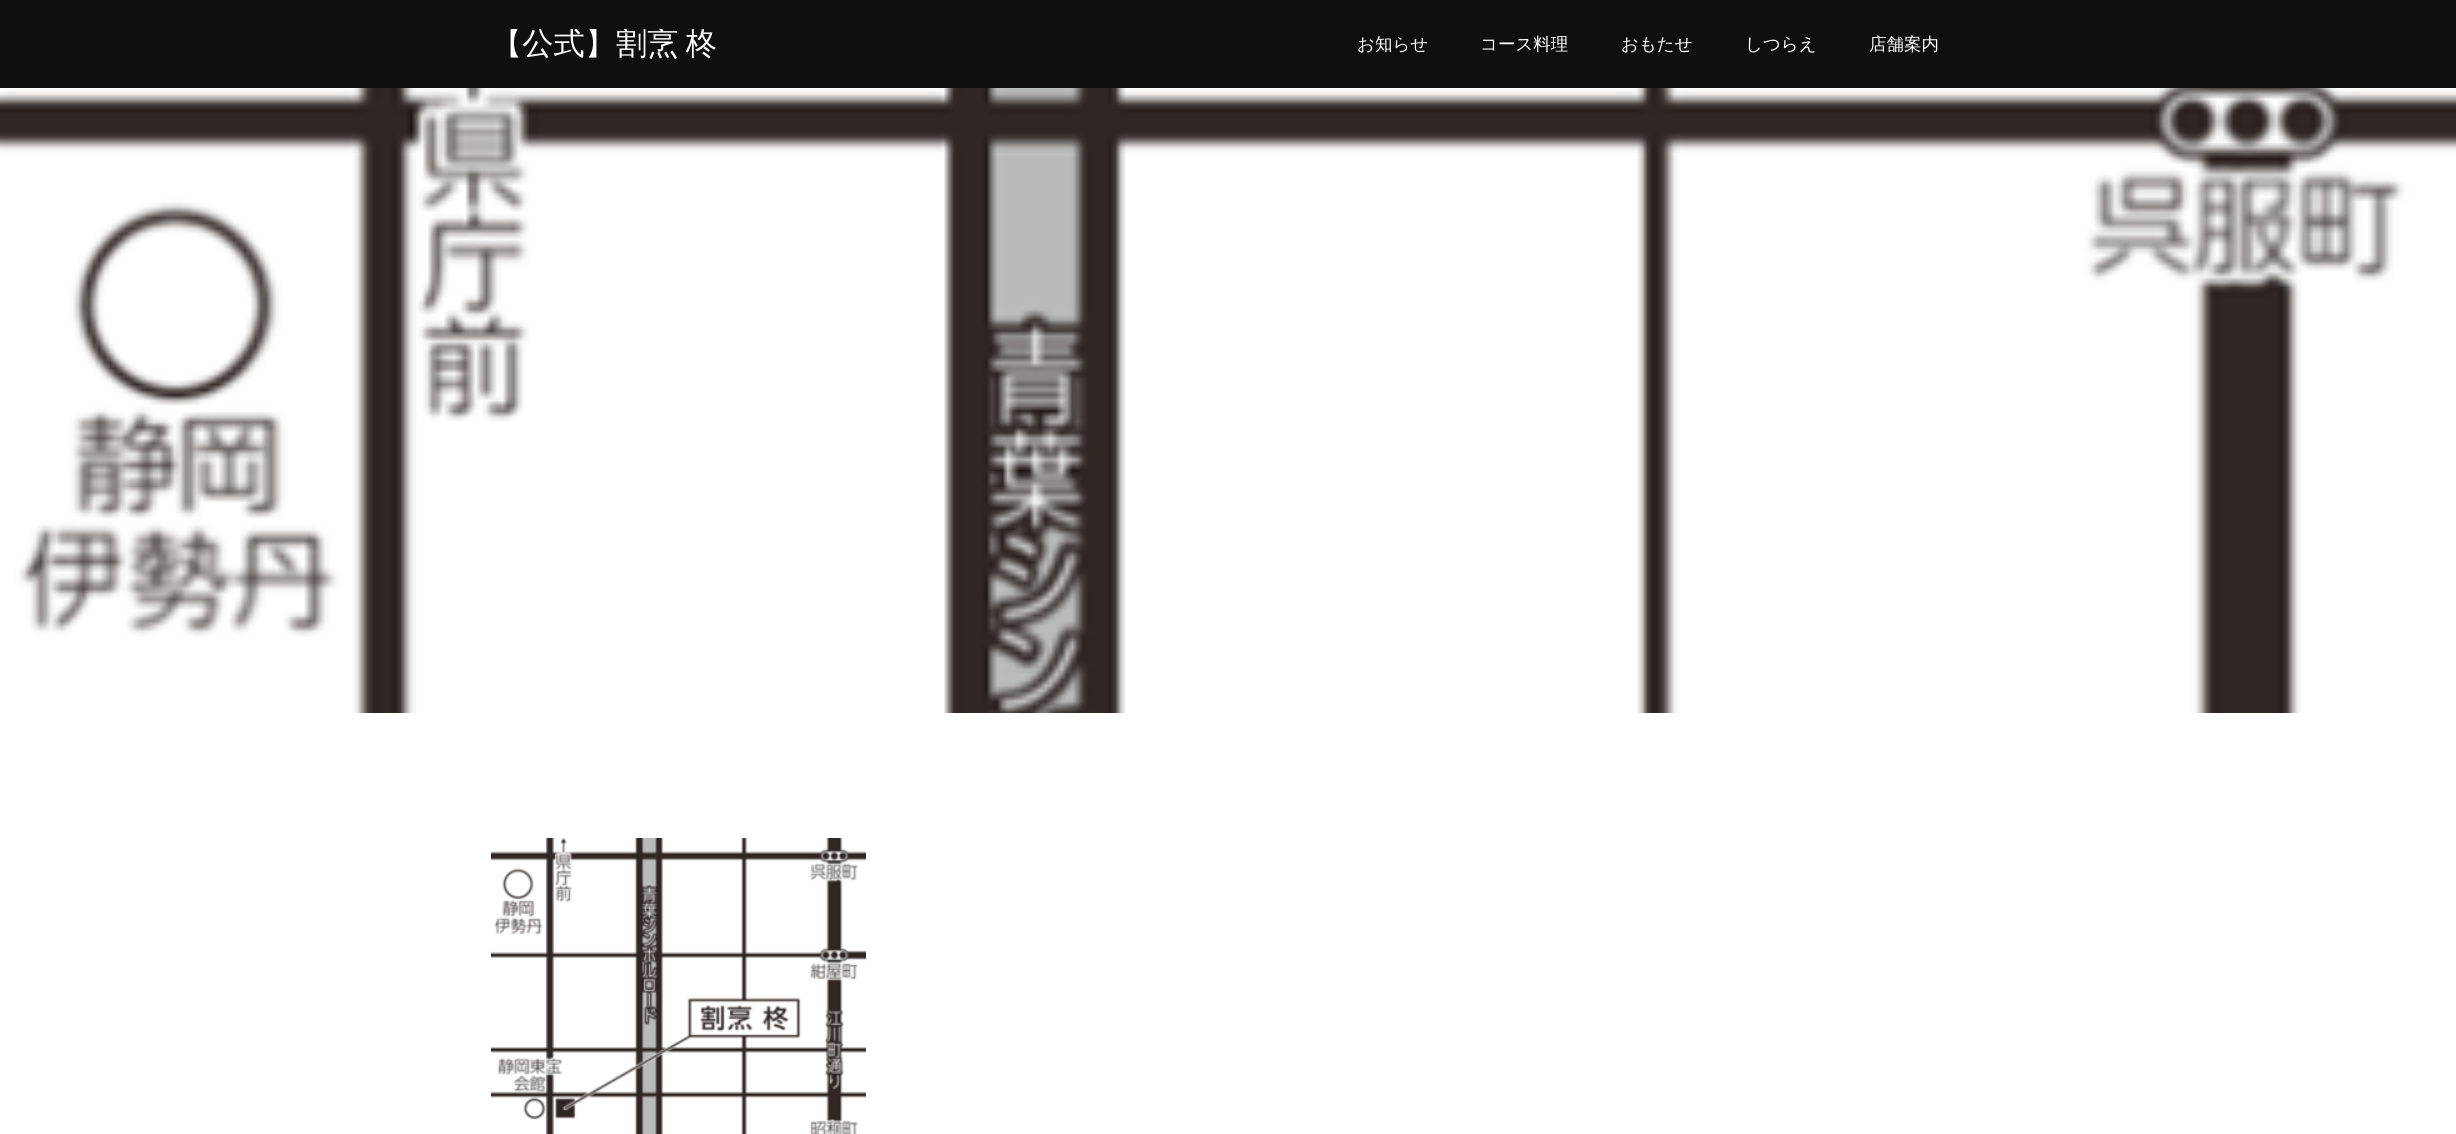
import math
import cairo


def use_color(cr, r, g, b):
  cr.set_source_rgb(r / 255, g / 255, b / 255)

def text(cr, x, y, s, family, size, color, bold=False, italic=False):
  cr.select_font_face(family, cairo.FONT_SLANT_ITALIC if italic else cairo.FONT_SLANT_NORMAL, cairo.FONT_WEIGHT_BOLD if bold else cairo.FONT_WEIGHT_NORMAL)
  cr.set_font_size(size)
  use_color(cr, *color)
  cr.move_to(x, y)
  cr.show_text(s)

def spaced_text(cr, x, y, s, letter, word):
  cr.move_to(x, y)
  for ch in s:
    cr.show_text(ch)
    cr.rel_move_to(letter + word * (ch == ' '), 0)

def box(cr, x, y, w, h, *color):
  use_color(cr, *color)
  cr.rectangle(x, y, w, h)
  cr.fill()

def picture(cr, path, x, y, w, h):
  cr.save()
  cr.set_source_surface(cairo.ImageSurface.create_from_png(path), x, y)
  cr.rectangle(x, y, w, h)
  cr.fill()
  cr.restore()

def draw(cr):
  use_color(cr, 255, 255, 255)
  cr.paint()
  box(cr, 0, 0, 2456, 88, 15, 15, 15)
  picture(cr, "img_01.png", 0, 88, 2456, 625)
  picture(cr, "img_02.png", 491, 838, 375, 296)
  cr.save()
  cr.rectangle(491, 29, 227, 31)
  cr.clip()
  cr.select_font_face("WenQuanYi Zen Hei Medium")
  cr.set_font_size(31.25)
  use_color(cr, 255, 255, 255)
  spaced_text(cr, 491, 54, "【公式】割烹 柊", 0, -2)
  cr.restore()
  text(cr, 1357, 50, "お知らせ", "WenQuanYi Zen Hei Medium", 17.5, (255, 255, 255))
  text(cr, 1480, 50, "コース料理", "WenQuanYi Zen Hei Medium", 17.5, (255, 255, 255))
  text(cr, 1621, 50, "おもたせ", "WenQuanYi Zen Hei Medium", 17.5, (255, 255, 255))
  text(cr, 1745, 50, "しつらえ", "WenQuanYi Zen Hei Medium", 17.5, (255, 255, 255))
  text(cr, 1869, 50, "店舗案内", "WenQuanYi Zen Hei Medium", 17.5, (255, 255, 255))


surface = cairo.ImageSurface(cairo.FORMAT_RGB24, 2456, 1134)
cr = cairo.Context(surface)
options = cairo.FontOptions()
options.set_hint_metrics(cairo.HINT_METRICS_OFF)
options.set_hint_style(cairo.HINT_STYLE_NONE)
cr.set_font_options(options)
cr.set_miter_limit(4)
draw(cr)
surface.write_to_png("out.png")
